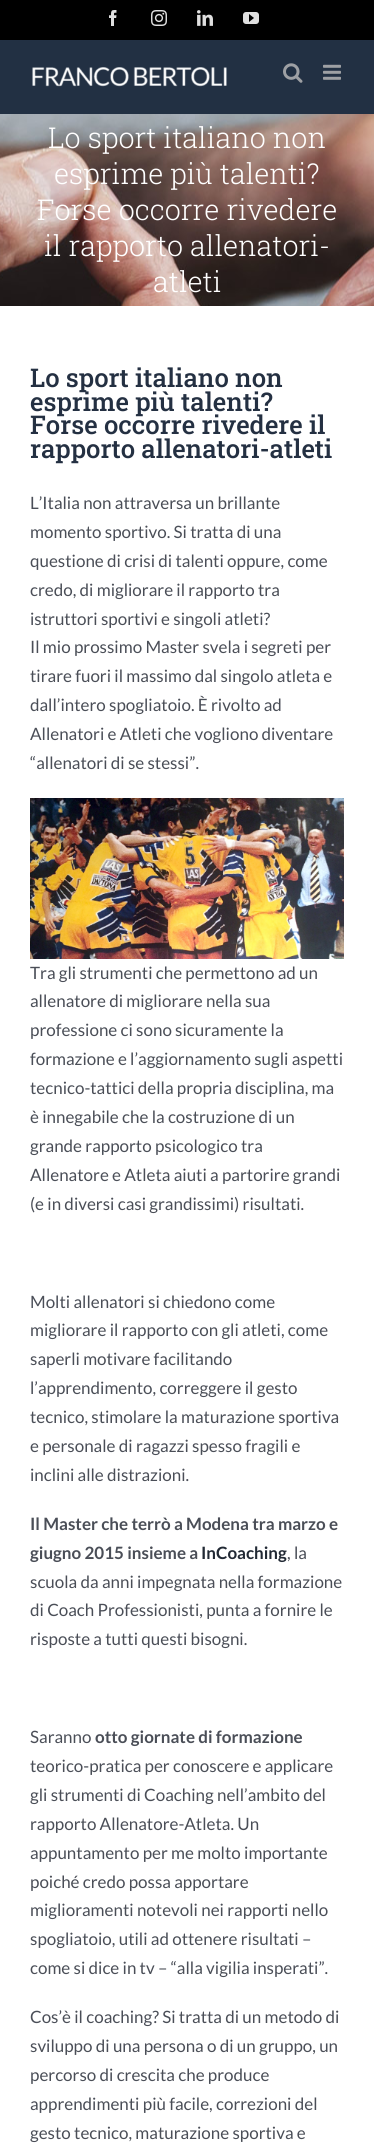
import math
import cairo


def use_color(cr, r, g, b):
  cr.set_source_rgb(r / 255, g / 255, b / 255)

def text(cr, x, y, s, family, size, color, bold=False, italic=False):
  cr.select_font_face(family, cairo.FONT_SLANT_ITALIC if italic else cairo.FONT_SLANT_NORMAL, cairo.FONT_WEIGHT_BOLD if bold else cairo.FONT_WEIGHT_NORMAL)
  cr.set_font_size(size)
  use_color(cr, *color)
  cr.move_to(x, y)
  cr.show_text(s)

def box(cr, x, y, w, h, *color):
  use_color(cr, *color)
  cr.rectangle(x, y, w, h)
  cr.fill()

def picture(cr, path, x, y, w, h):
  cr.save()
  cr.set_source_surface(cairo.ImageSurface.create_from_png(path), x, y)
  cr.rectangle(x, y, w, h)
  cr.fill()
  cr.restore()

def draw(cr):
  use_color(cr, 255, 255, 255)
  cr.paint()
  box(cr, 0, 0, 374, 40, 0, 0, 0)
  picture(cr, "img_01.png", 109, 10, 8, 16)
  picture(cr, "img_02.png", 151, 10, 16, 16)
  picture(cr, "img_03.png", 197, 10, 16, 16)
  picture(cr, "img_04.png", 243, 12, 16, 12)
  box(cr, 0, 40, 374, 74, 34, 48, 67)
  picture(cr, "img_05.png", 32, 67, 195, 20)
  picture(cr, "img_06.png", 283, 63, 20, 20)
  picture(cr, "img_07.png", 323, 64, 18, 16)
  picture(cr, "img_08.png", 0, 114, 374, 192)
  picture(cr, "img_09.png", 30, 798, 314, 161)
  text(cr, 48, 148, "Lo sport italiano non", "Roboto Slab Light", 28.75, (255, 255, 255))
  text(cr, 54, 184, "esprime più talenti?", "Roboto Slab Light", 28.75, (255, 255, 255))
  text(cr, 37, 220, "Forse occorre rivedere", "Roboto Slab Light", 28.75, (255, 255, 255))
  text(cr, 44, 256, "il rapporto allenatori-", "Roboto Slab Light", 28.75, (255, 255, 255))
  text(cr, 153, 292, "atleti", "Roboto Slab Light", 28.75, (255, 255, 255))
  text(cr, 30, 387, "Lo sport italiano non", "Roboto Slab Medium", 25.75, (36, 48, 66))
  text(cr, 30, 411, "esprime più talenti?", "Roboto Slab Medium", 25.75, (36, 48, 66))
  text(cr, 30, 434, "Forse occorre rivedere il", "Roboto Slab Medium", 25.75, (36, 48, 66))
  text(cr, 30, 458, "rapporto allenatori-atleti", "Roboto Slab Medium", 25.75, (36, 48, 66))
  text(cr, 30, 509, "L’Italia non attraversa un brillante", "Lato", 17, (74, 78, 87))
  text(cr, 30, 538, "momento sportivo. Si tratta di una", "Lato", 17, (74, 78, 87))
  text(cr, 30, 567, "questione di crisi di talenti oppure, come", "Lato", 17, (74, 78, 87))
  text(cr, 30, 596, "credo, di migliorare il rapporto tra", "Lato", 17, (74, 78, 87))
  text(cr, 30, 625, "istruttori sportivi e singoli atleti?", "Lato", 17, (74, 78, 87))
  text(cr, 30, 653, "Il mio prossimo Master svela i segreti per", "Lato", 17, (74, 78, 87))
  text(cr, 30, 682, "tirare fuori il massimo dal singolo atleta e", "Lato", 17, (74, 78, 87))
  text(cr, 30, 711, "dall’intero spogliatoio. È rivolto ad", "Lato", 17, (74, 78, 87))
  text(cr, 30, 740, "Allenatori e Atleti che vogliono diventare", "Lato", 17, (74, 78, 87))
  text(cr, 30, 769, "“allenatori di se stessi”.", "Lato", 17, (74, 78, 87))
  text(cr, 30, 979, "Tra gli strumenti che permettono ad un", "Lato", 17, (74, 78, 87))
  text(cr, 30, 1007, "allenatore di migliorare nella sua", "Lato", 17, (74, 78, 87))
  text(cr, 30, 1036, "professione ci sono sicuramente la", "Lato", 17, (74, 78, 87))
  text(cr, 30, 1065, "formazione e l’aggiornamento sugli aspetti", "Lato", 17, (74, 78, 87))
  text(cr, 30, 1094, "tecnico-tattici della propria disciplina, ma", "Lato", 17, (74, 78, 87))
  text(cr, 30, 1123, "è innegabile che la costruzione di un", "Lato", 17, (74, 78, 87))
  text(cr, 30, 1152, "grande rapporto psicologico tra", "Lato", 17, (74, 78, 87))
  text(cr, 30, 1181, "Allenatore e Atleta aiuti a partorire grandi", "Lato", 17, (74, 78, 87))
  text(cr, 30, 1210, "(e in diversi casi grandissimi) risultati.", "Lato", 17, (74, 78, 87))
  text(cr, 30, 1308, "Molti allenatori si chiedono come", "Lato", 17, (74, 78, 87))
  text(cr, 30, 1336, "migliorare il rapporto con gli atleti, come", "Lato", 17, (74, 78, 87))
  text(cr, 30, 1365, "saperli motivare facilitando", "Lato", 17, (74, 78, 87))
  text(cr, 30, 1394, "l’apprendimento, correggere il gesto", "Lato", 17, (74, 78, 87))
  text(cr, 30, 1423, "tecnico, stimolare la maturazione sportiva", "Lato", 17, (74, 78, 87))
  text(cr, 30, 1452, "e personale di ragazzi spesso fragili e", "Lato", 17, (74, 78, 87))
  text(cr, 30, 1481, "inclini alle distrazioni.", "Lato", 17, (74, 78, 87))
  text(cr, 30, 1530, "Il Master che terrò a Modena tra marzo e", "Lato", 17, (74, 78, 87), bold=True)
  text(cr, 30, 1559, "giugno 2015 insieme a", "Lato", 17, (74, 78, 87), bold=True)
  text(cr, 201, 1559, "InCoaching", "Lato", 17, (33, 41, 52), bold=True)
  text(cr, 287, 1559, ", la", "Lato", 17, (74, 78, 87))
  text(cr, 30, 1588, "scuola da anni impegnata nella formazione", "Lato", 17, (74, 78, 87))
  text(cr, 30, 1616, "di Coach Professionisti, punta a fornire le", "Lato", 17, (74, 78, 87))
  text(cr, 30, 1645, "risposte a tutti questi bisogni.", "Lato", 17, (74, 78, 87))
  text(cr, 30, 1743, "Saranno", "Lato", 17, (74, 78, 87))
  text(cr, 95, 1743, "otto giornate di formazione", "Lato", 17, (74, 78, 87), bold=True)
  text(cr, 30, 1772, "teorico-pratica per conoscere e applicare", "Lato", 17, (74, 78, 87))
  text(cr, 30, 1801, "gli strumenti di Coaching nell’ambito del", "Lato", 17, (74, 78, 87))
  text(cr, 30, 1830, "rapporto Allenatore-Atleta. Un", "Lato", 17, (74, 78, 87))
  text(cr, 30, 1859, "appuntamento per me molto importante", "Lato", 17, (74, 78, 87))
  text(cr, 30, 1888, "poiché credo possa apportare", "Lato", 17, (74, 78, 87))
  text(cr, 30, 1916, "miglioramenti notevoli nei rapporti nello", "Lato", 17, (74, 78, 87))
  text(cr, 30, 1945, "spogliatoio, utili ad ottenere risultati –", "Lato", 17, (74, 78, 87))
  text(cr, 30, 1974, "come si dice in tv – “alla vigilia insperati”.", "Lato", 17, (74, 78, 87))
  text(cr, 30, 2023, "Cos’è il coaching? Si tratta di un metodo di", "Lato", 17, (74, 78, 87))
  text(cr, 30, 2052, "sviluppo di una persona o di un gruppo, un", "Lato", 17, (74, 78, 87))
  text(cr, 30, 2081, "percorso di crescita che produce", "Lato", 17, (74, 78, 87))
  text(cr, 30, 2110, "apprendimenti più facile, correzioni del", "Lato", 17, (74, 78, 87))
  text(cr, 30, 2139, "gesto tecnico, maturazione sportiva e", "Lato", 17, (74, 78, 87))


surface = cairo.ImageSurface(cairo.FORMAT_RGB24, 374, 2151)
cr = cairo.Context(surface)
options = cairo.FontOptions()
options.set_hint_metrics(cairo.HINT_METRICS_OFF)
options.set_hint_style(cairo.HINT_STYLE_NONE)
cr.set_font_options(options)
cr.set_miter_limit(4)
draw(cr)
surface.write_to_png("out.png")
